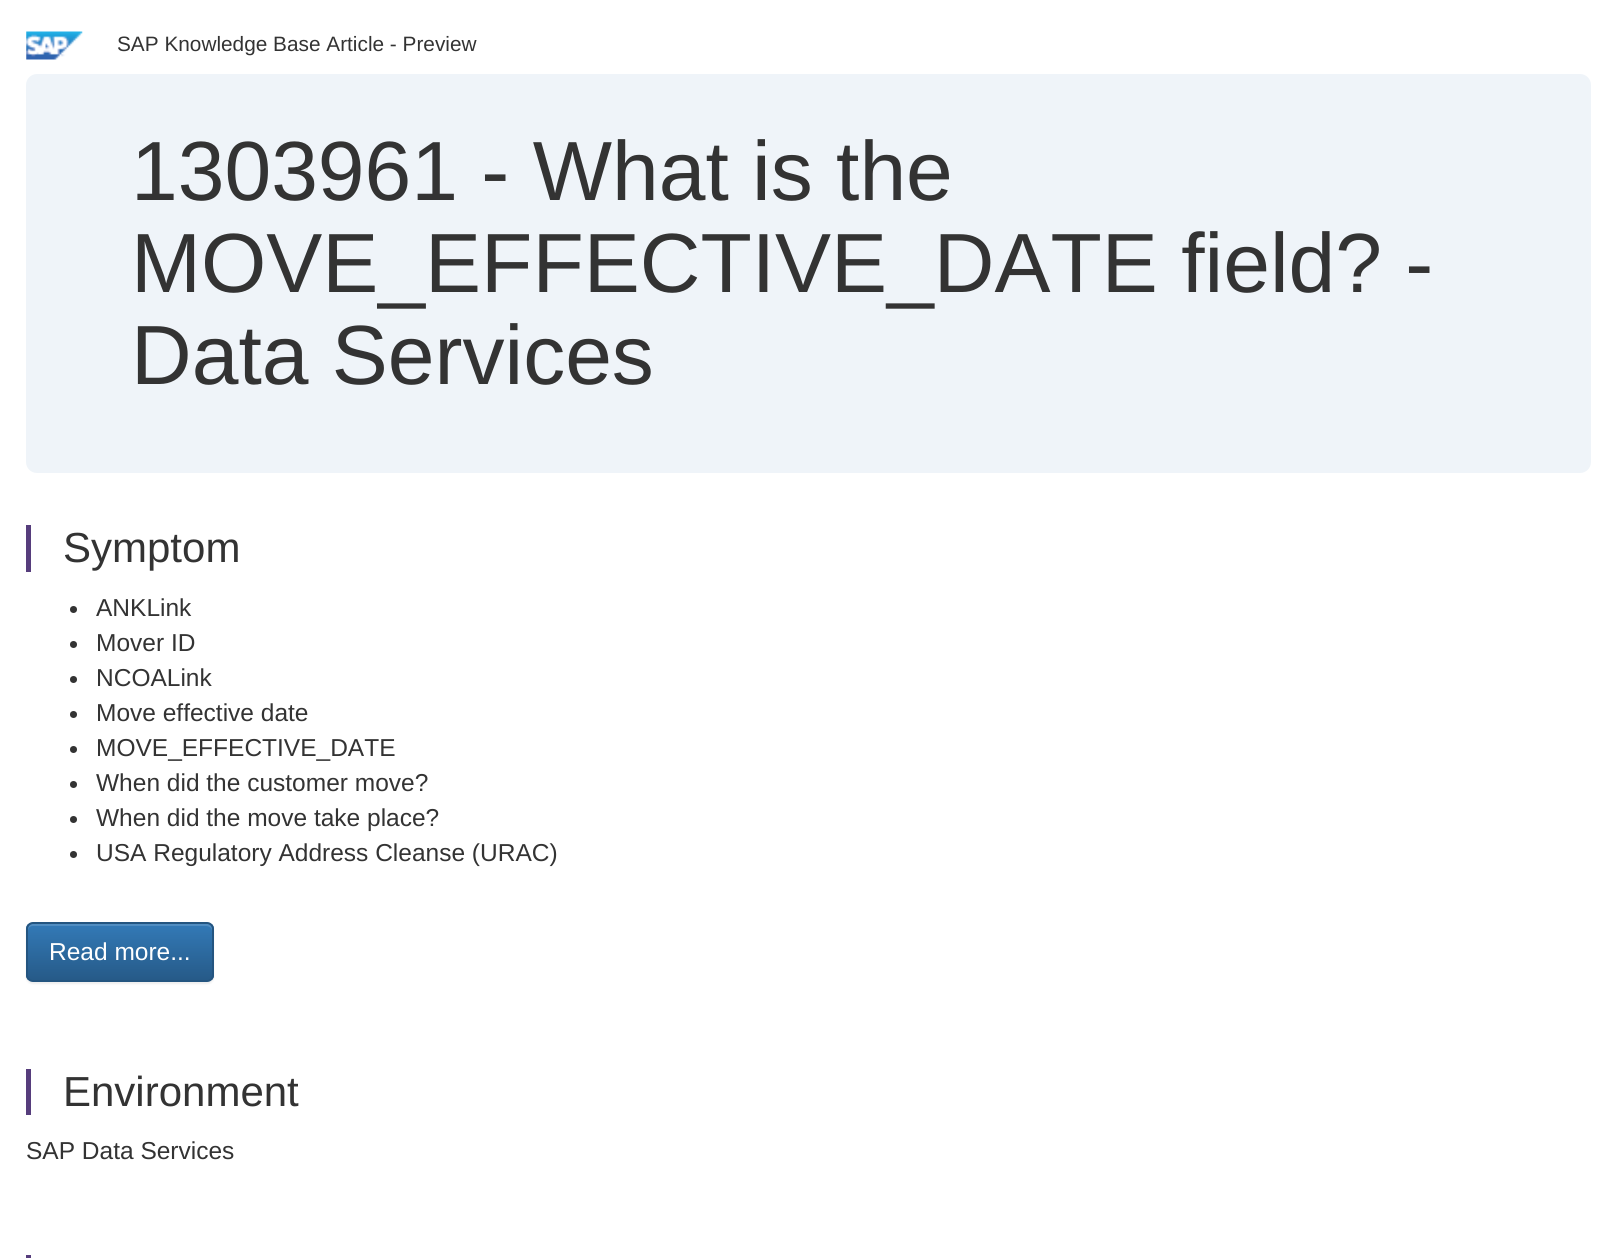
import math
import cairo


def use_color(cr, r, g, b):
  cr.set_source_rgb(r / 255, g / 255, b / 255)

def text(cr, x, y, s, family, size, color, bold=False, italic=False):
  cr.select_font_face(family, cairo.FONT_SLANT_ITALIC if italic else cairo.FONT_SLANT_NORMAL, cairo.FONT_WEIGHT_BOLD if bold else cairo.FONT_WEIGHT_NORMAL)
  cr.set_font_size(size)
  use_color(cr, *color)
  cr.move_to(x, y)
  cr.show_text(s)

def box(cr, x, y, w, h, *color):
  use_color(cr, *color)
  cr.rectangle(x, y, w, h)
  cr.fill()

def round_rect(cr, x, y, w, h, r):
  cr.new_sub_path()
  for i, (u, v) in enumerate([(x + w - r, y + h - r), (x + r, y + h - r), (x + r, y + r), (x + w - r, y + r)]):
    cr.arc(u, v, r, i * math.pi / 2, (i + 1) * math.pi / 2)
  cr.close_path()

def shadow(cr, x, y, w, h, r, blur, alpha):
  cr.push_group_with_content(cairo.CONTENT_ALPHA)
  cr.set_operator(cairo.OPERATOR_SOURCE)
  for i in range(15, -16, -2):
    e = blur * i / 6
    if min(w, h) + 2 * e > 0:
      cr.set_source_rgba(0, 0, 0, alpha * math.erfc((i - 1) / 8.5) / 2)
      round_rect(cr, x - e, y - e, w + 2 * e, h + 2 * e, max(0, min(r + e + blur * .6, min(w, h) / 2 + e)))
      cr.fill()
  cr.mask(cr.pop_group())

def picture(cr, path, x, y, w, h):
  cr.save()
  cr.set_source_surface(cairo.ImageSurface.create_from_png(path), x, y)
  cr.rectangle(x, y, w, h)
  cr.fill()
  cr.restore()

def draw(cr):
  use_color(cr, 255, 255, 255)
  cr.paint()
  picture(cr, "img_01.png", 26, 31, 57, 29)
  use_color(cr, 239, 244, 249)
  round_rect(cr, 26, 74, 1565, 399, 11)
  cr.fill()
  box(cr, 26, 525, 5, 47, 86, 61, 124)
  use_color(cr, 51, 51, 51)
  cr.arc(73.5, 609.5, 3.5, 0, 2 * math.pi)
  cr.fill()
  cr.arc(73.5, 644.5, 3.5, 0, 2 * math.pi)
  cr.fill()
  cr.arc(73.5, 679.5, 3.5, 0, 2 * math.pi)
  cr.fill()
  cr.arc(73.5, 714.5, 3.5, 0, 2 * math.pi)
  cr.fill()
  cr.arc(73.5, 749.5, 3.5, 0, 2 * math.pi)
  cr.fill()
  cr.arc(73.5, 784.5, 3.5, 0, 2 * math.pi)
  cr.fill()
  cr.arc(73.5, 819.5, 3.5, 0, 2 * math.pi)
  cr.fill()
  cr.arc(73.5, 854.5, 3.5, 0, 2 * math.pi)
  cr.fill()
  use_color(cr, 0, 0, 0)
  shadow(cr, 26, 924, 188, 60, 7, 1, 0.07)
  cr.save()
  round_rect(cr, 26, 922, 188, 60, 7)
  cr.clip()
  gradient = cairo.LinearGradient(120, 924, 120, 980)
  gradient.add_color_stop_rgba(0, 0.2, 0.478, 0.718, 1)
  gradient.add_color_stop_rgba(1, 0.149, 0.353, 0.533, 1)
  cr.set_source(gradient)
  cr.rectangle(26, 924, 188, 56)
  cr.fill()
  cr.restore()
  cr.set_source_rgba(1, 1, 1, 0.15)
  cr.new_path()
  cr.move_to(33, 926)
  cr.line_to(206, 926)
  cr.curve_to(209, 926, 212, 928, 212, 931)
  cr.line_to(212, 929)
  cr.curve_to(212, 926, 210, 924, 207, 924)
  cr.line_to(33, 924)
  cr.curve_to(30, 924, 28, 926, 28, 929)
  cr.line_to(28, 931)
  cr.curve_to(28, 928, 30, 926, 33, 926)
  cr.close_path()
  cr.fill()
  round_rect(cr, 27, 923, 186, 58, 6)
  use_color(cr, 36, 85, 128)
  cr.stroke()
  box(cr, 26, 1069, 5, 46, 86, 61, 124)
  box(cr, 26, 1255, 5, 3, 86, 61, 124)
  text(cr, 117, 51, "SAP Knowledge Base Article - Preview", "Liberation Sans", 20.8, (51, 51, 51))
  text(cr, 131, 200, "1303961 - What is the", "Liberation Sans", 84, (51, 51, 51))
  text(cr, 131, 292, "MOVE_EFFECTIVE_DATE field? -", "Liberation Sans", 84, (51, 51, 51))
  text(cr, 131, 384, "Data Services", "Liberation Sans", 84, (51, 51, 51))
  text(cr, 63, 562, "Symptom", "Liberation Sans", 42, (51, 51, 51))
  text(cr, 96, 616, "ANKLink", "Liberation Sans", 24.5, (51, 51, 51))
  text(cr, 96, 651, "Mover ID", "Liberation Sans", 24.5, (51, 51, 51))
  text(cr, 96, 686, "NCOALink", "Liberation Sans", 24.5, (51, 51, 51))
  text(cr, 96, 721, "Move effective date", "Liberation Sans", 24.5, (51, 51, 51))
  text(cr, 96, 756, "MOVE_EFFECTIVE_DATE", "Liberation Sans", 24.5, (51, 51, 51))
  text(cr, 96, 791, "When did the customer move?", "Liberation Sans", 24.5, (51, 51, 51))
  text(cr, 96, 826, "When did the move take place?", "Liberation Sans", 24.5, (51, 51, 51))
  text(cr, 96, 861, "USA Regulatory Address Cleanse (URAC)", "Liberation Sans", 24.5, (51, 51, 51))
  text(cr, 49, 960, "Read more...", "Liberation Sans", 24.5, (255, 255, 255))
  text(cr, 63, 1106, "Environment", "Liberation Sans", 42, (51, 51, 51))
  text(cr, 26, 1159, "SAP Data Services", "Liberation Sans", 24.5, (51, 51, 51))


surface = cairo.ImageSurface(cairo.FORMAT_RGB24, 1616, 1258)
cr = cairo.Context(surface)
options = cairo.FontOptions()
options.set_hint_metrics(cairo.HINT_METRICS_OFF)
options.set_hint_style(cairo.HINT_STYLE_NONE)
cr.set_font_options(options)
cr.set_miter_limit(4)
draw(cr)
surface.write_to_png("out.png")
